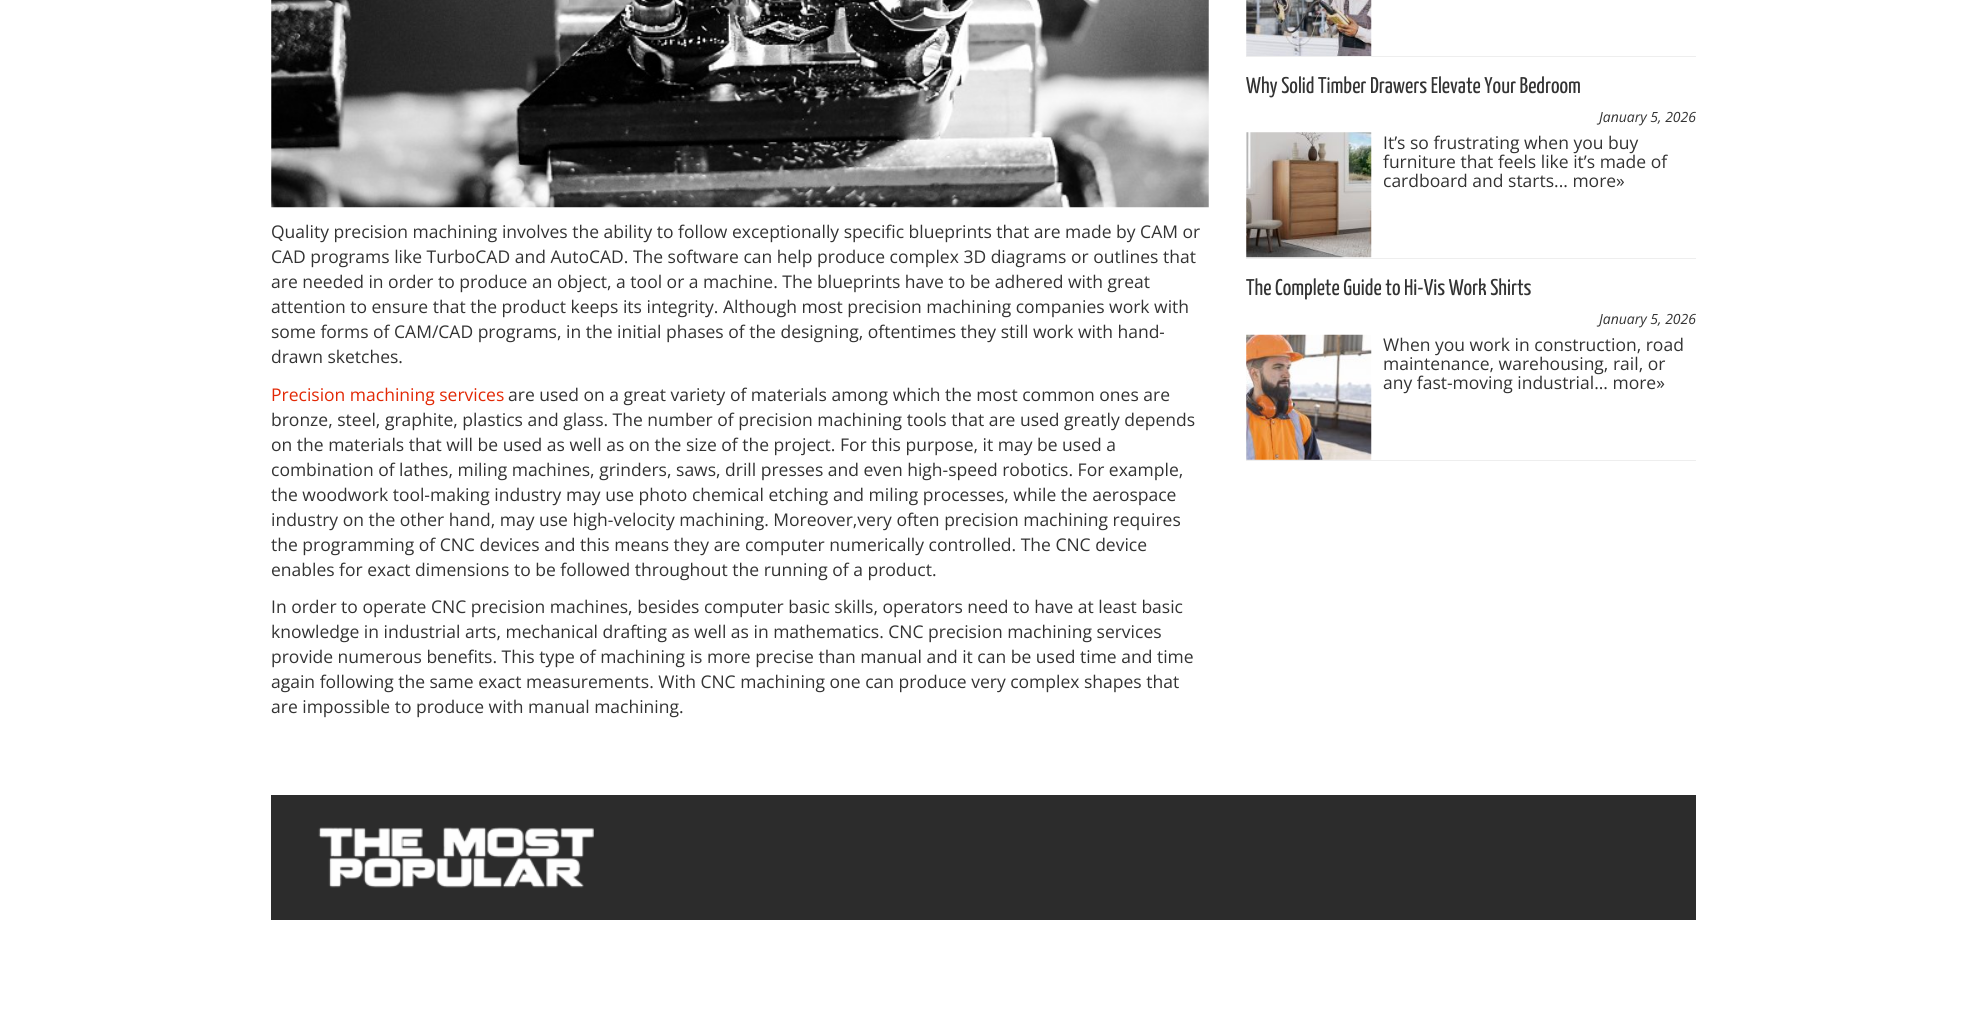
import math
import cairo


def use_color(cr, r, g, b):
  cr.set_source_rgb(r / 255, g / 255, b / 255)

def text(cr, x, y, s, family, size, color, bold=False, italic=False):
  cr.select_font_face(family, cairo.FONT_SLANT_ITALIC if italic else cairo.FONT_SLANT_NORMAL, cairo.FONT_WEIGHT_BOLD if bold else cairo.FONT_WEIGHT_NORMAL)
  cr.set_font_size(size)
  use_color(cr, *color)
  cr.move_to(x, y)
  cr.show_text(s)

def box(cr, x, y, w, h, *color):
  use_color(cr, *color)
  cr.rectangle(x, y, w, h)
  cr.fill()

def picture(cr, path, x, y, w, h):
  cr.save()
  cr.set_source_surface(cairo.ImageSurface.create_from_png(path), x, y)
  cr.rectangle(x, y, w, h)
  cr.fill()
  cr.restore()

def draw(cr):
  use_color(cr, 255, 255, 255)
  cr.paint()
  picture(cr, "img_01.png", 271, 0, 938, 208)
  box(cr, 1246, 56, 450, 1, 238, 238, 238)
  picture(cr, "img_02.png", 1246, 0, 126, 56)
  box(cr, 1246, 258, 450, 1, 238, 238, 238)
  picture(cr, "img_03.png", 1246, 132, 126, 126)
  box(cr, 1246, 460, 450, 1, 238, 238, 238)
  picture(cr, "img_04.png", 1246, 334, 126, 126)
  box(cr, 271, 795, 1425, 125, 44, 44, 44)
  picture(cr, "img_05.png", 318, 827, 276, 61)
  text(cr, 271, 238, "Quality precision machining involves the ability to follow exceptionally specific blueprints that are made by CAM or", "Open Sans", 17.5, (51, 51, 51))
  text(cr, 271, 263, "CAD programs like TurboCAD and AutoCAD. The software can help produce complex 3D diagrams or outlines that", "Open Sans", 17.5, (51, 51, 51))
  text(cr, 271, 288, "are needed in order to produce an object, a tool or a machine. The blueprints have to be adhered with great", "Open Sans", 17.5, (51, 51, 51))
  text(cr, 271, 313, "attention to ensure that the product keeps its integrity. Although most precision machining companies work with", "Open Sans", 17.5, (51, 51, 51))
  text(cr, 271, 338, "some forms of CAM/CAD programs, in the initial phases of the designing, oftentimes they still work with hand-", "Open Sans", 17.5, (51, 51, 51))
  text(cr, 271, 363, "drawn sketches.", "Open Sans", 17.5, (51, 51, 51))
  text(cr, 271, 401, "Precision machining services", "Open Sans", 17.5, (226, 40, 5))
  text(cr, 508, 401, "are used on a great variety of materials among which the most common ones are", "Open Sans", 17.5, (51, 51, 51))
  text(cr, 271, 426, "bronze, steel, graphite, plastics and glass. The number of precision machining tools that are used greatly depends", "Open Sans", 17.5, (51, 51, 51))
  text(cr, 271, 451, "on the materials that will be used as well as on the size of the project. For this purpose, it may be used a", "Open Sans", 17.5, (51, 51, 51))
  text(cr, 271, 476, "combination of lathes, miling machines, grinders, saws, drill presses and even high-speed robotics. For example,", "Open Sans", 17.5, (51, 51, 51))
  text(cr, 271, 501, "the woodwork tool-making industry may use photo chemical etching and miling processes, while the aerospace", "Open Sans", 17.5, (51, 51, 51))
  text(cr, 271, 526, "industry on the other hand, may use high-velocity machining. Moreover,very often precision machining requires", "Open Sans", 17.5, (51, 51, 51))
  text(cr, 271, 551, "the programming of CNC devices and this means they are computer numerically controlled. The CNC device", "Open Sans", 17.5, (51, 51, 51))
  text(cr, 271, 576, "enables for exact dimensions to be followed throughout the running of a product.", "Open Sans", 17.5, (51, 51, 51))
  text(cr, 271, 613, "In order to operate CNC precision machines, besides computer basic skills, operators need to have at least basic", "Open Sans", 17.5, (51, 51, 51))
  text(cr, 271, 638, "knowledge in industrial arts, mechanical drafting as well as in mathematics. CNC precision machining services", "Open Sans", 17.5, (51, 51, 51))
  text(cr, 271, 663, "provide numerous benefits. This type of machining is more precise than manual and it can be used time and time", "Open Sans", 17.5, (51, 51, 51))
  text(cr, 271, 688, "again following the same exact measurements. With CNC machining one can produce very complex shapes that", "Open Sans", 17.5, (51, 51, 51))
  text(cr, 271, 713, "are impossible to produce with manual machining.", "Open Sans", 17.5, (51, 51, 51))
  text(cr, 1246, 93, "Why Solid Timber Drawers Elevate Your Bedroom", "Yanone Kaffeesatz", 22.75, (51, 51, 51))
  text(cr, 1599, 122, "January 5, 2026", "Open Sans", 14, (51, 51, 51), italic=True)
  text(cr, 1383, 149, "It’s so frustrating when you buy", "Open Sans", 17.5, (51, 51, 51))
  text(cr, 1383, 168, "furniture that feels like it’s made of", "Open Sans", 17.5, (51, 51, 51))
  text(cr, 1383, 187, "cardboard and starts... more»", "Open Sans", 17.5, (51, 51, 51))
  text(cr, 1246, 295, "The Complete Guide to Hi-Vis Work Shirts", "Yanone Kaffeesatz", 22.75, (51, 51, 51))
  text(cr, 1599, 324, "January 5, 2026", "Open Sans", 14, (51, 51, 51), italic=True)
  text(cr, 1383, 351, "When you work in construction, road", "Open Sans", 17.5, (51, 51, 51))
  text(cr, 1383, 370, "maintenance, warehousing, rail, or", "Open Sans", 17.5, (51, 51, 51))
  text(cr, 1383, 389, "any fast-moving industrial... more»", "Open Sans", 17.5, (51, 51, 51))


surface = cairo.ImageSurface(cairo.FORMAT_RGB24, 1966, 1020)
cr = cairo.Context(surface)
options = cairo.FontOptions()
options.set_hint_metrics(cairo.HINT_METRICS_OFF)
options.set_hint_style(cairo.HINT_STYLE_NONE)
cr.set_font_options(options)
cr.set_miter_limit(4)
draw(cr)
surface.write_to_png("out.png")
